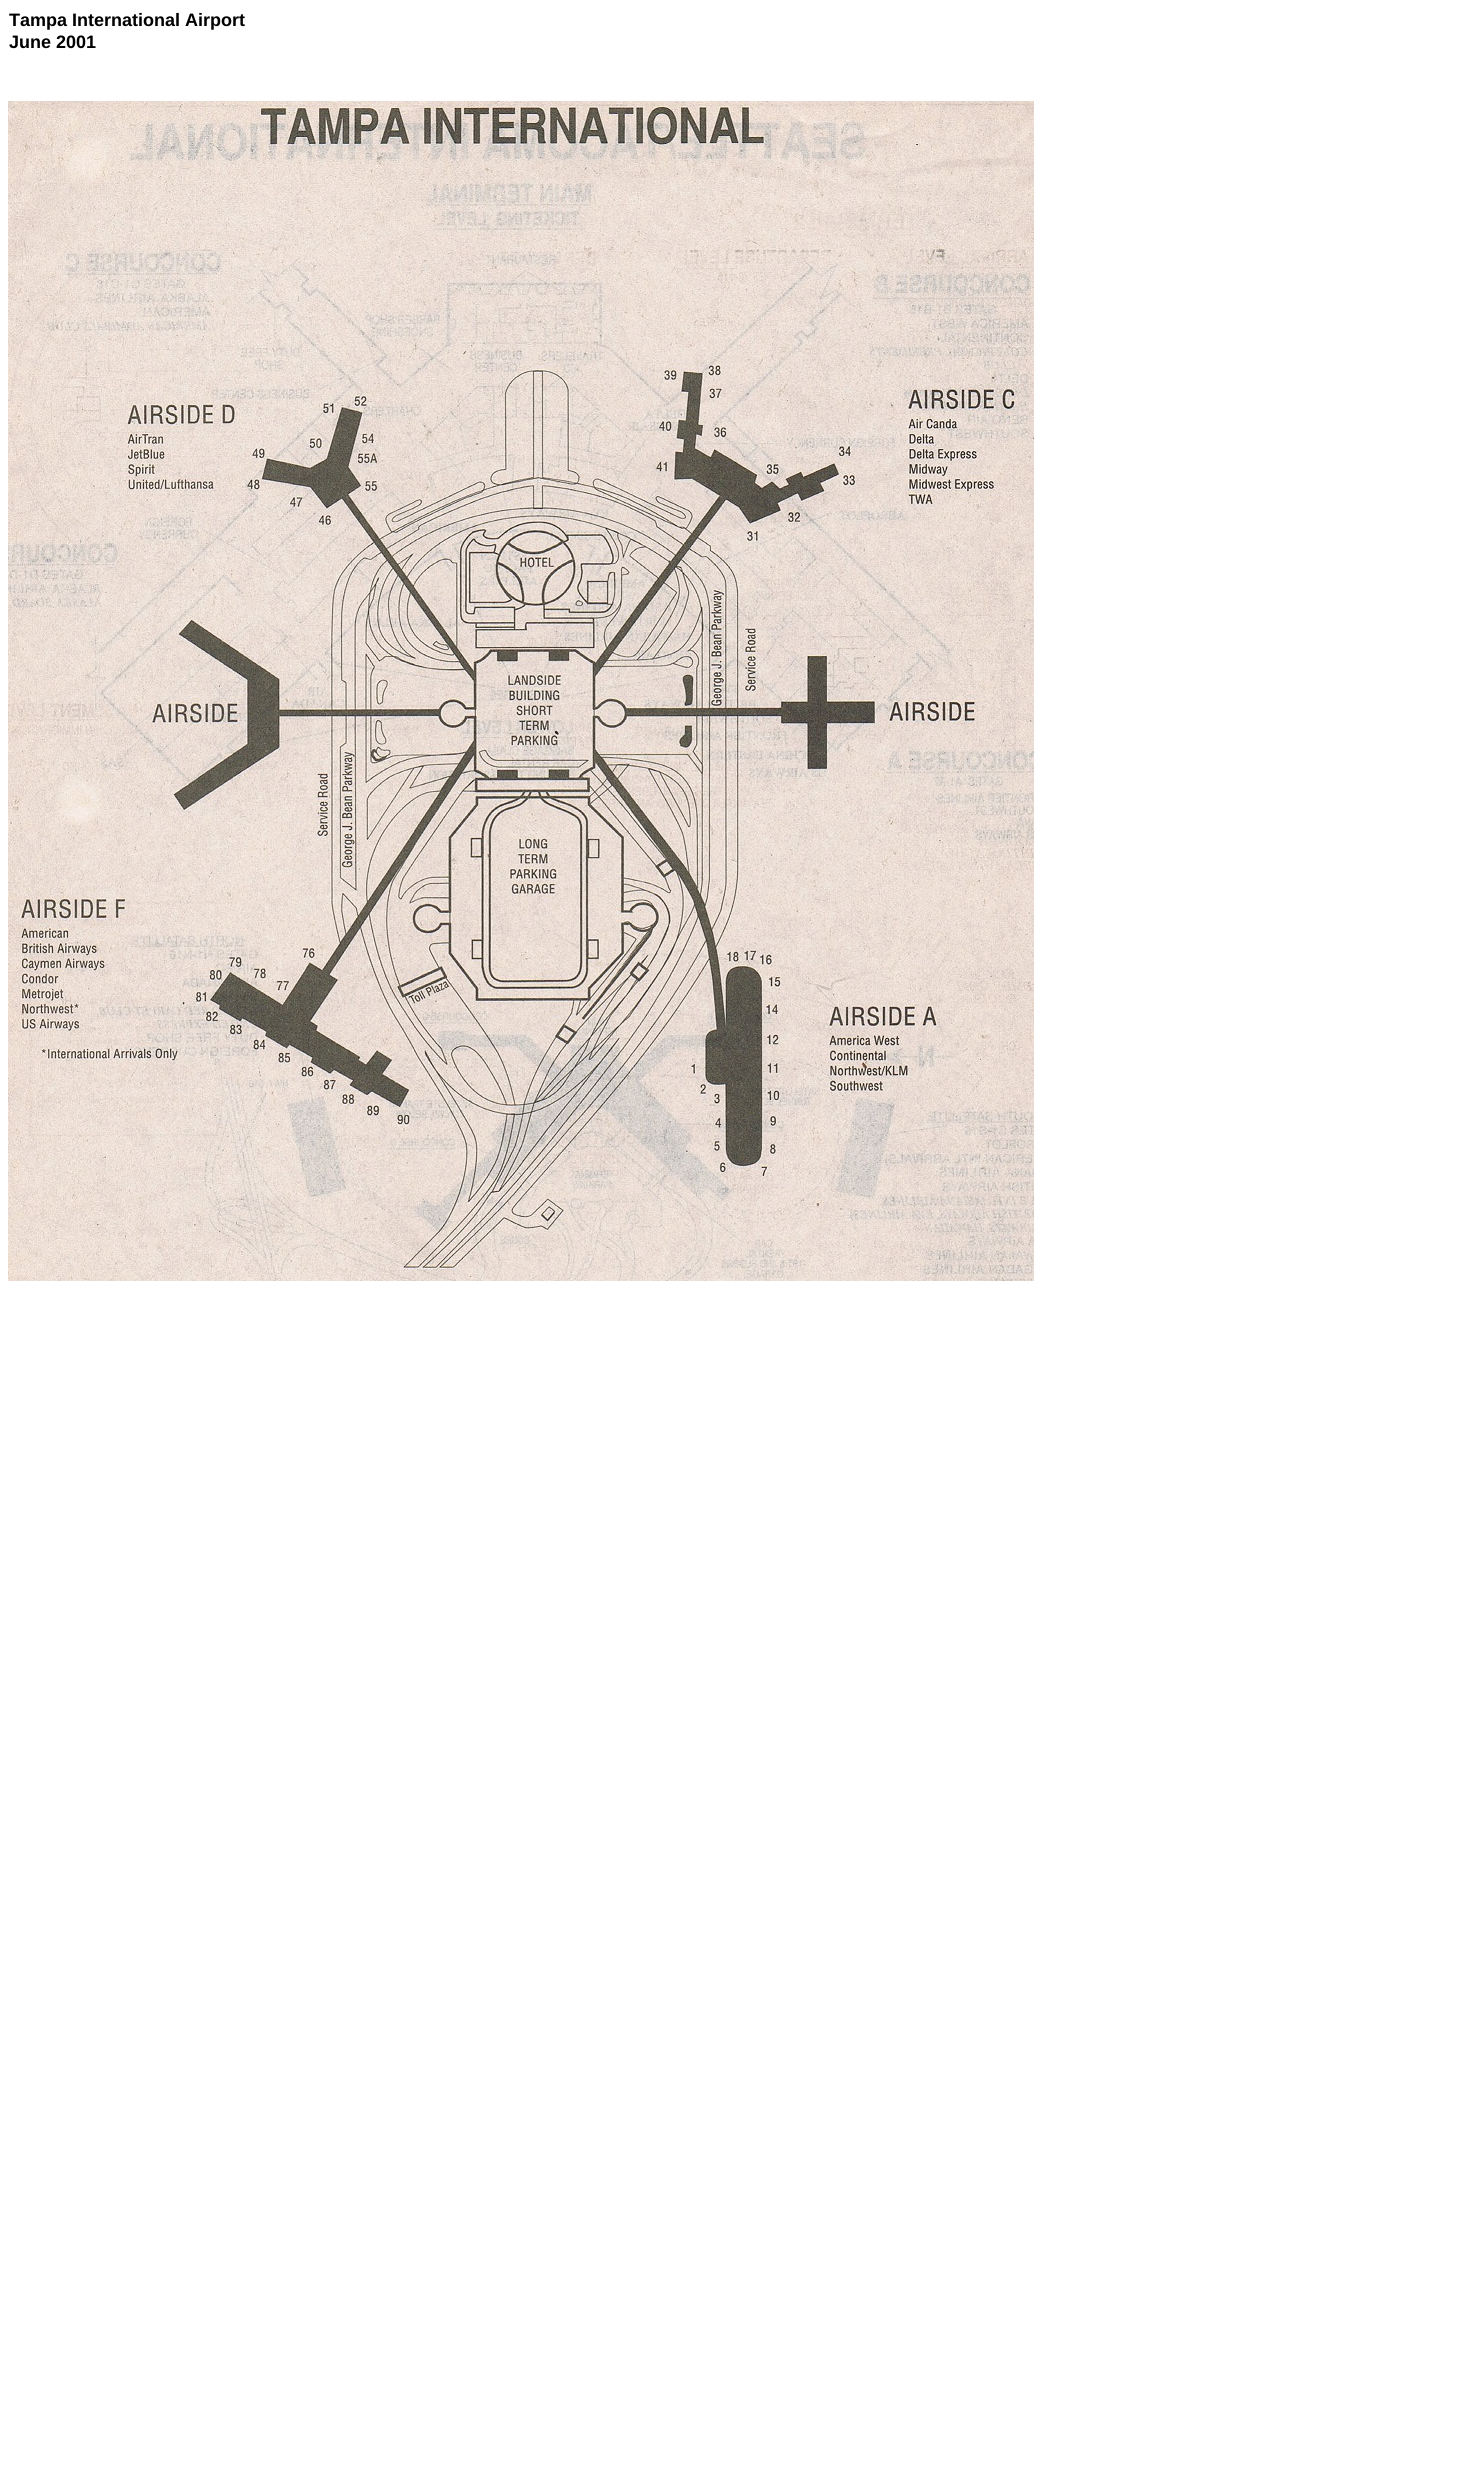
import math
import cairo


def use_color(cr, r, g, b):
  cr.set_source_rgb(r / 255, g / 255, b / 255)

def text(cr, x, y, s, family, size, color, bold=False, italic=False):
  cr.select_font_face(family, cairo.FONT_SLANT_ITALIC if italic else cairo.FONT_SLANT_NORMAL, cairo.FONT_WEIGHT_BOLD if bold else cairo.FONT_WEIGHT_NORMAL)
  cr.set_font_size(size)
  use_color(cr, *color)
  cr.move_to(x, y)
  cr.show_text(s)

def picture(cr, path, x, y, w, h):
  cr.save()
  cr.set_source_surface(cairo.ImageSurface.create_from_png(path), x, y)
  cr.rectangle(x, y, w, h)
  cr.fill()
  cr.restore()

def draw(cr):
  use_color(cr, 255, 255, 255)
  cr.paint()
  picture(cr, "img_01.png", 8, 101, 1026, 1180)
  text(cr, 9, 26, "Tampa International Airport", "Liberation Sans", 18, (0, 0, 0), bold=True)
  text(cr, 9, 48, "June 2001", "Liberation Sans", 18, (0, 0, 0), bold=True)


surface = cairo.ImageSurface(cairo.FORMAT_RGB24, 1461, 2469)
cr = cairo.Context(surface)
options = cairo.FontOptions()
options.set_hint_metrics(cairo.HINT_METRICS_OFF)
options.set_hint_style(cairo.HINT_STYLE_NONE)
cr.set_font_options(options)
cr.set_miter_limit(4)
draw(cr)
surface.write_to_png("out.png")
